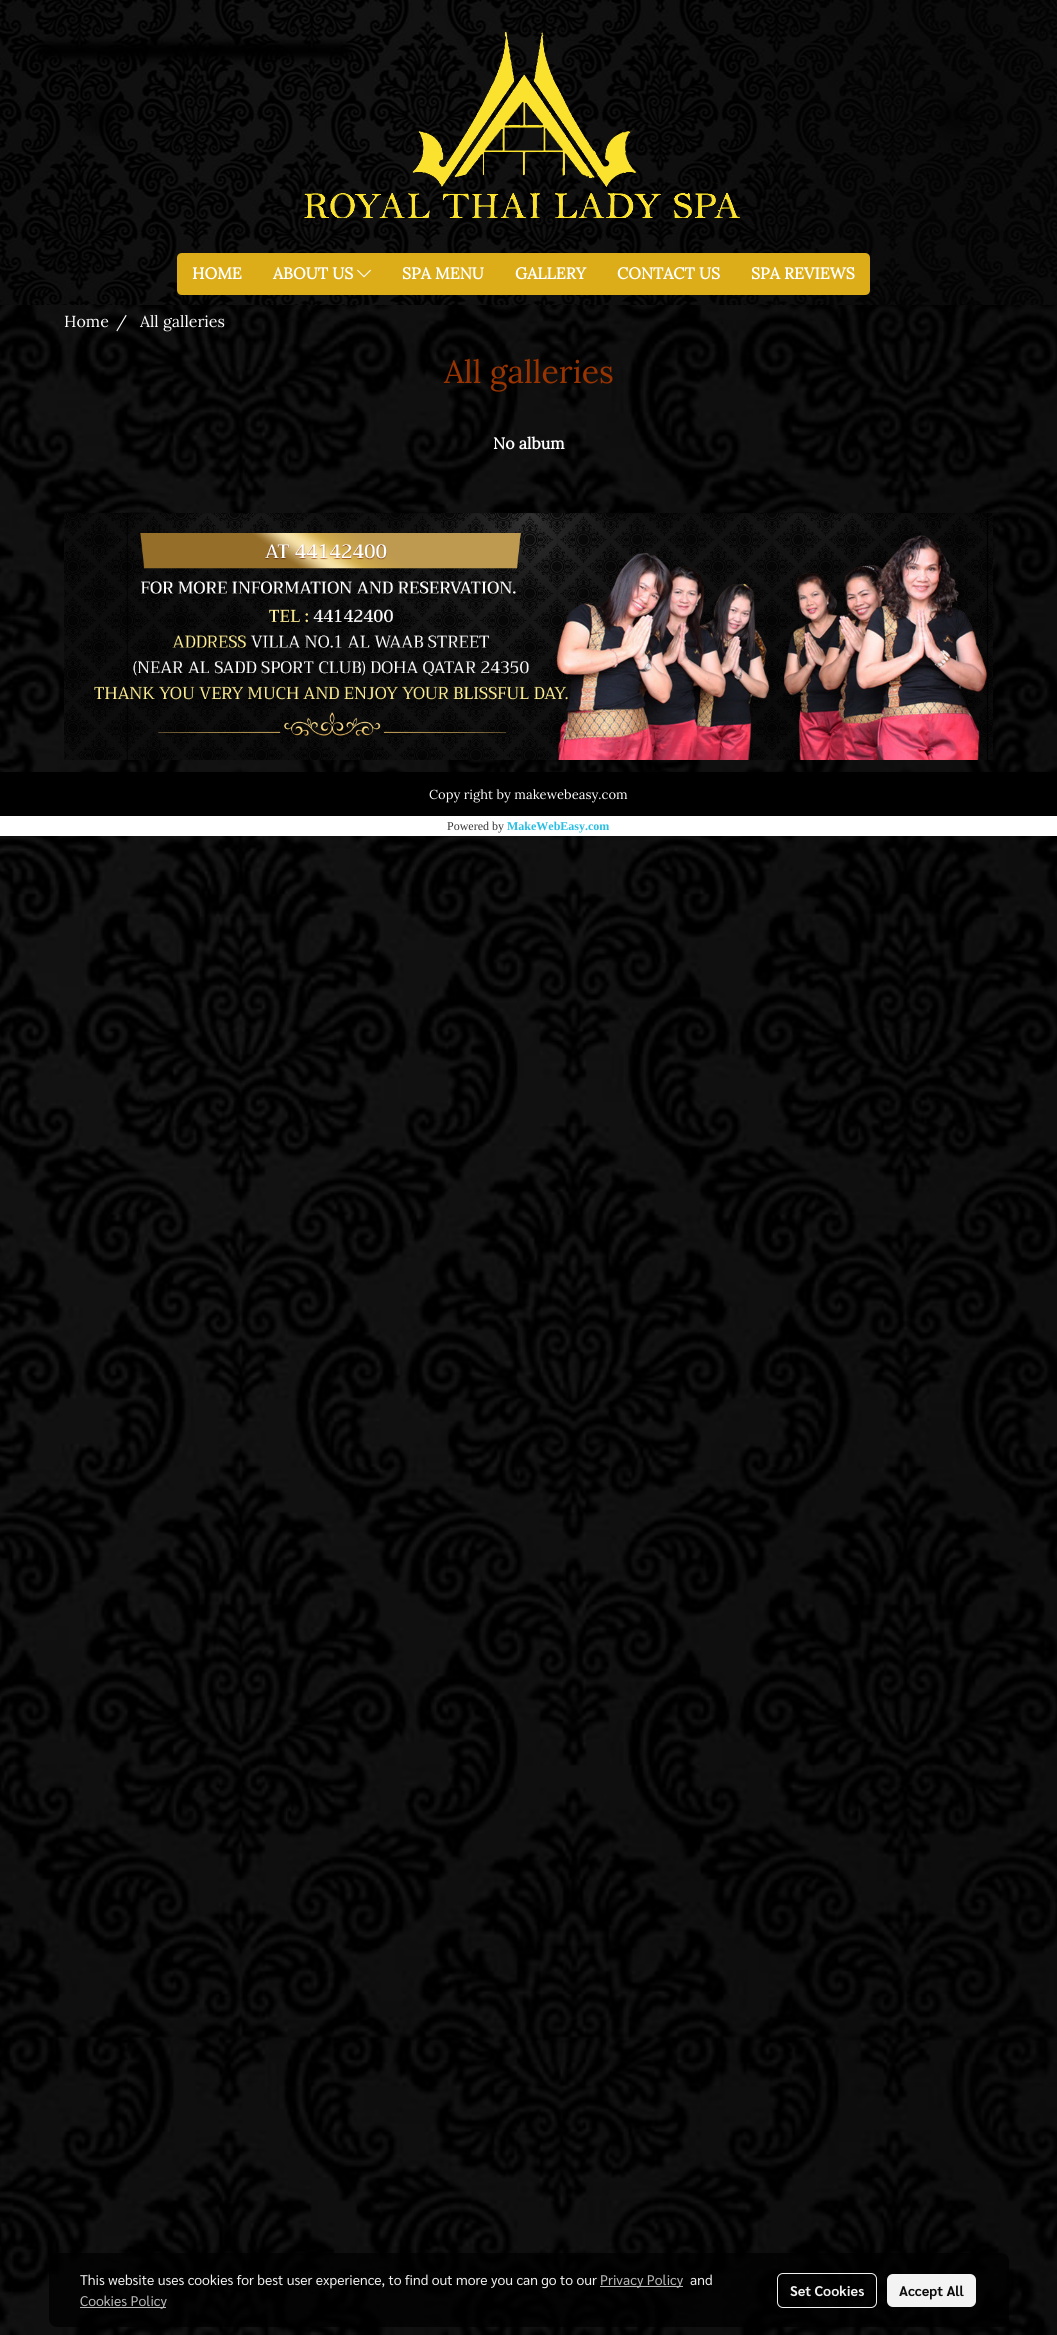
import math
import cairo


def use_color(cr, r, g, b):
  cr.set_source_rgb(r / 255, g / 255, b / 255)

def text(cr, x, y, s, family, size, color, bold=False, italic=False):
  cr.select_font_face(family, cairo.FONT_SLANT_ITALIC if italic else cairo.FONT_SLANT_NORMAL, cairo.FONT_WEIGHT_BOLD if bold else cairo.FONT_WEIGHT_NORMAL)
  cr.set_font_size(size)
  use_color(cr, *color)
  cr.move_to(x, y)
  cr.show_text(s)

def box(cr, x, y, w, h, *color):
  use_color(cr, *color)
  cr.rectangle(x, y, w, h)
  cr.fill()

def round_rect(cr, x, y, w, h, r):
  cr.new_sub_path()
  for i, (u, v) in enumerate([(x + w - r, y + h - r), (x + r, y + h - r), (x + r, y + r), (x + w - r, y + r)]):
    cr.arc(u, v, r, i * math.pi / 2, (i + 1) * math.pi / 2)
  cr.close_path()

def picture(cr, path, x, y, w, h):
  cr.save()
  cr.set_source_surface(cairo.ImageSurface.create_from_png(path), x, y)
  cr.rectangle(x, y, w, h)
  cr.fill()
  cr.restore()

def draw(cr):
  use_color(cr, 255, 255, 255)
  cr.paint()
  picture(cr, "img_01.png", 0, 305, 1057, 2030)
  picture(cr, "img_02.png", 0, 0, 1057, 305)
  picture(cr, "img_03.png", 304, 32, 436, 186)
  box(cr, 257, 253, 1, 42, 220, 173, 25)
  cr.new_path()
  cr.move_to(182, 253)
  cr.line_to(257, 253)
  cr.line_to(257, 295)
  cr.line_to(182, 295)
  cr.curve_to(179, 295, 177, 293, 177, 290)
  cr.line_to(177, 258)
  cr.curve_to(177, 255, 179, 253, 182, 253)
  cr.close_path()
  cr.fill()
  box(cr, 258, 253, 129, 42, 220, 173, 25)
  picture(cr, "img_04.png", 357, 269, 14, 9)
  box(cr, 387, 253, 113, 42, 220, 173, 25)
  box(cr, 500, 253, 102, 42, 220, 173, 25)
  box(cr, 602, 253, 134, 42, 220, 173, 25)
  cr.new_path()
  cr.move_to(736, 253)
  cr.line_to(865, 253)
  cr.curve_to(868, 253, 870, 255, 870, 258)
  cr.line_to(870, 290)
  cr.curve_to(870, 293, 868, 295, 865, 295)
  cr.line_to(736, 295)
  cr.close_path()
  cr.fill()
  picture(cr, "img_05.png", 64, 513, 929, 247)
  box(cr, 0, 772, 1057, 44, 0, 0, 0)
  box(cr, 0, 816, 1057, 20, 255, 255, 255)
  cr.set_source_rgba(0, 0, 0, 0.76)
  round_rect(cr, 49, 2253, 960, 74, 8)
  cr.fill()
  cr.set_source_rgba(0.761, 0.761, 0.761, 0.95)
  cr.rectangle(600, 2286, 83, 1)
  cr.fill()
  cr.rectangle(80, 2307, 86, 1)
  cr.fill()
  round_rect(cr, 777.5, 2273.5, 99, 34, 5.5)
  cr.set_source_rgba(1, 1, 1, 0.95)
  cr.set_line_width(1)
  cr.stroke()
  round_rect(cr, 887, 2274, 89, 33, 6)
  cr.fill()
  text(cr, 192, 279, "HOME", "Lora", 16, (255, 255, 255), bold=True)
  text(cr, 273, 279, "ABOUT US", "Lora", 16, (255, 255, 255), bold=True)
  text(cr, 402, 279, "SPA MENU", "Lora", 16, (255, 255, 255), bold=True)
  text(cr, 515, 279, "GALLERY", "Lora", 16, (255, 255, 255), bold=True)
  text(cr, 617, 279, "CONTACT US", "Lora", 16, (255, 255, 255), bold=True)
  text(cr, 751, 279, "SPA REVIEWS", "Lora", 16, (255, 255, 255), bold=True)
  text(cr, 64, 327, "Home", "Lora", 16, (255, 255, 255))
  text(cr, 116, 327, "/", "Lora", 16, (255, 255, 255))
  text(cr, 140, 327, "All galleries", "Lora", 16, (255, 255, 255))
  text(cr, 444, 383, "All galleries", "Lora", 32, (153, 51, 0))
  text(cr, 493, 449, "No album", "Lora", 16, (255, 255, 255), bold=True)
  text(cr, 429, 799, "Copy right by makewebeasy.com", "Lora", 13, (255, 255, 255))
  text(cr, 447, 830, "Powered by", "Liberation Serif", 12, (53, 53, 53))
  text(cr, 507, 830, "MakeWebEasy.com", "Liberation Serif", 12, (40, 190, 227), bold=True)
  text(cr, 80, 2285, "This website uses cookies for best user experience, to find out more you can go to our", "Sarabun", 14, (242, 242, 242))
  text(cr, 600, 2285, "Privacy Policy", "Sarabun", 14, (185, 185, 185))
  text(cr, 690, 2285, "and", "Sarabun", 14, (242, 242, 242))
  text(cr, 80, 2306, "Cookies Policy", "Sarabun", 14, (185, 185, 185))
  text(cr, 790, 2296, "Set Cookies", "Sarabun", 14, (242, 242, 242), bold=True)
  text(cr, 899, 2296, "Accept All", "Sarabun", 14, (12, 12, 12), bold=True)


surface = cairo.ImageSurface(cairo.FORMAT_RGB24, 1057, 2335)
cr = cairo.Context(surface)
options = cairo.FontOptions()
options.set_hint_metrics(cairo.HINT_METRICS_OFF)
options.set_hint_style(cairo.HINT_STYLE_NONE)
cr.set_font_options(options)
cr.set_miter_limit(4)
draw(cr)
surface.write_to_png("out.png")
